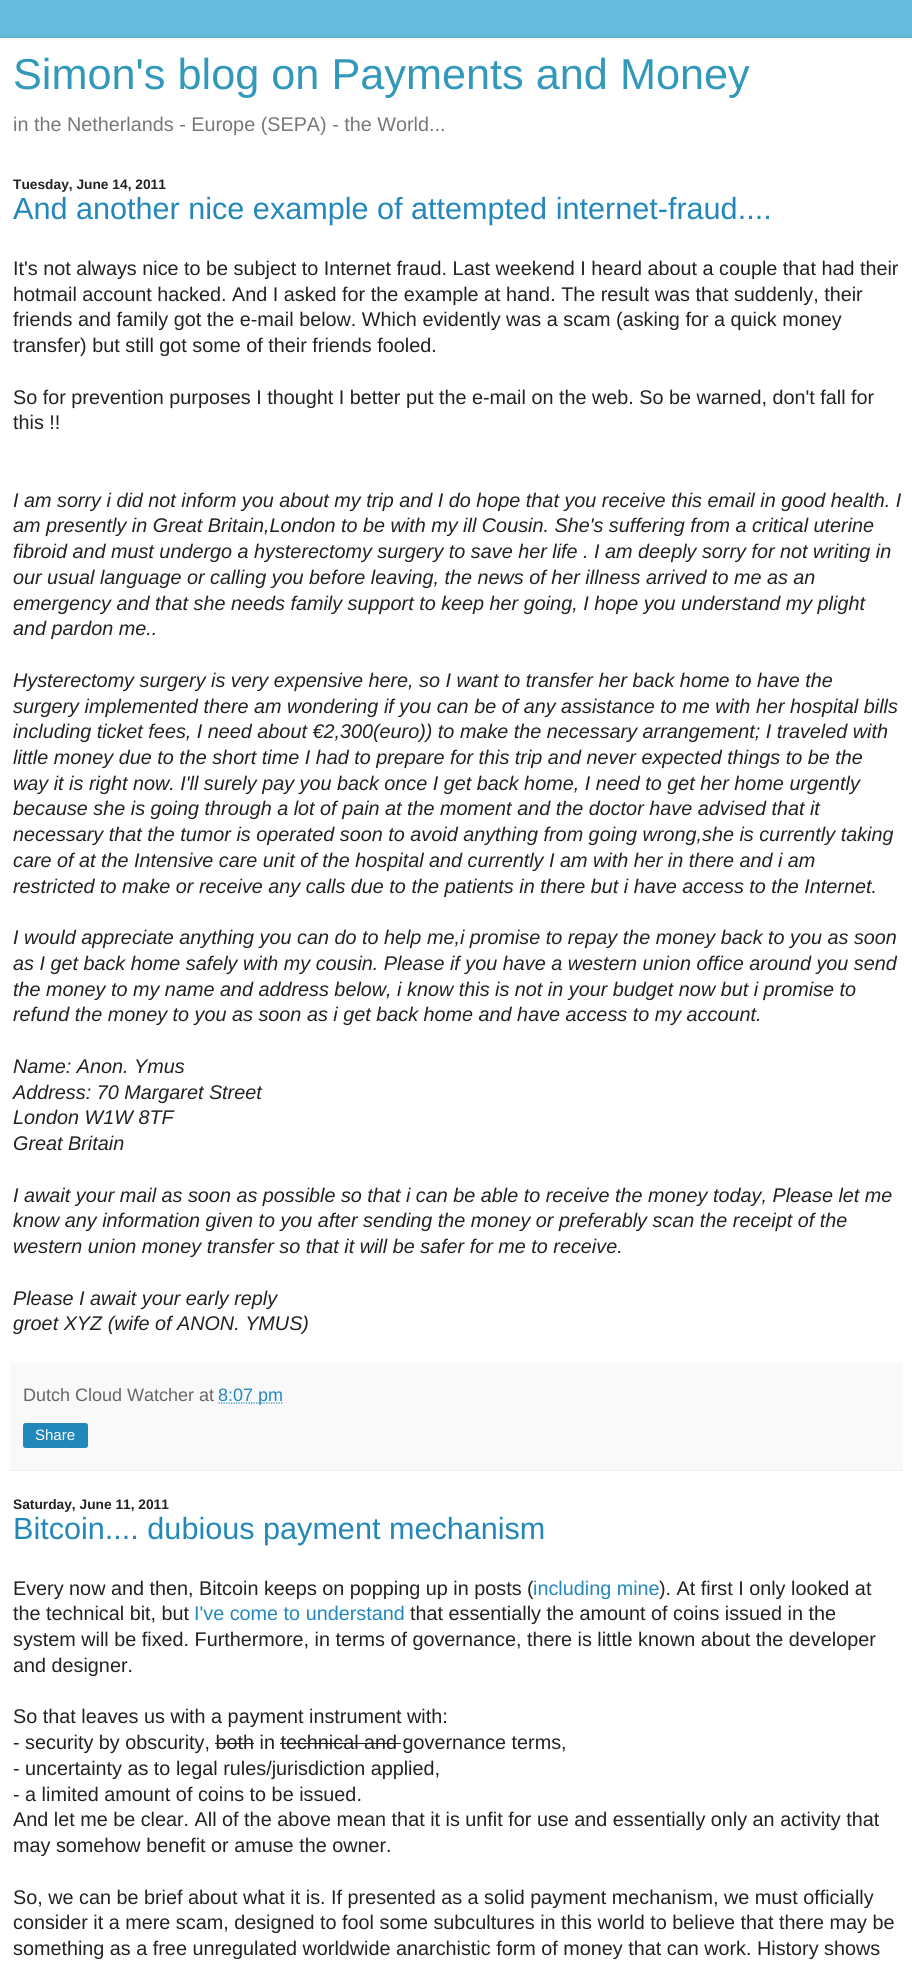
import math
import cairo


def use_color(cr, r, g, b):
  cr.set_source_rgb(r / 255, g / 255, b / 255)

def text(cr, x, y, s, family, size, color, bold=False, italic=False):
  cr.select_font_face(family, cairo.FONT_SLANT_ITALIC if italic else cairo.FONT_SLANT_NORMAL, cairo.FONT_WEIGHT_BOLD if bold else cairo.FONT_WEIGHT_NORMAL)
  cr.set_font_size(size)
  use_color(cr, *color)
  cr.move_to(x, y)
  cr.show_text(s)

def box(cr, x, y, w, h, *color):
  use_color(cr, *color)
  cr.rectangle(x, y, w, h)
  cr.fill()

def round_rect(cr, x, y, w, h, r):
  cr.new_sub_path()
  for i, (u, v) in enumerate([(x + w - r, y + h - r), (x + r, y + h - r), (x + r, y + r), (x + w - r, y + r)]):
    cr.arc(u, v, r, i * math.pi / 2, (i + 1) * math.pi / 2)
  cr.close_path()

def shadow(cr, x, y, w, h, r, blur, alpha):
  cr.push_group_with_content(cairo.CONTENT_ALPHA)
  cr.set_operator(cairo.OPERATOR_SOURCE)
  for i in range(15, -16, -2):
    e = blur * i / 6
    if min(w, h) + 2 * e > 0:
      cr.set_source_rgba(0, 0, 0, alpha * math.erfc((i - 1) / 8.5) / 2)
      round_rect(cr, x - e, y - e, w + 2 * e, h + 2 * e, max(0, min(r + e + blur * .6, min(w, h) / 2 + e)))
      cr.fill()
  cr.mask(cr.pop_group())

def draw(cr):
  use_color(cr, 102, 187, 221)
  cr.paint()
  use_color(cr, 0, 0, 0)
  shadow(cr, 0, 38, 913, 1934, 0, 2, 0.15)
  box(cr, 0, 38, 912, 1928, 255, 255, 255)
  box(cr, 10, 1363, 893, 107, 249, 249, 249)
  box(cr, 10, 1470, 893, 1, 238, 238, 238)
  cr.new_path()
  cr.move_to(218.5, 1403)
  cr.line_to(283.5, 1403)
  use_color(cr, 34, 136, 187)
  cr.set_line_width(1.2)
  cr.set_dash([1.25, 1.25])
  cr.stroke()
  round_rect(cr, 23, 1423, 65, 25, 2.5)
  cr.fill()
  box(cr, 215, 1743, 39, 1, 34, 34, 34)
  box(cr, 280, 1743, 121, 1, 34, 34, 34)
  text(cr, 13, 89, "Simon's blog on Payments and Money", "Liberation Sans", 43.25, (51, 153, 187))
  text(cr, 13, 131, "in the Netherlands - Europe (SEPA) - the World...", "Liberation Sans", 19.8, (119, 119, 119))
  text(cr, 13, 189, "Tuesday, June 14, 2011", "Liberation Sans", 13.75, (34, 34, 34), bold=True)
  text(cr, 13, 219, "And another nice example of attempted internet-fraud....", "Liberation Sans", 30.6, (34, 136, 187))
  text(cr, 13, 275, "It's not always nice to be subject to Internet fraud. Last weekend I heard about a couple that had their", "Liberation Sans", 19.8, (34, 34, 34))
  text(cr, 13, 301, "hotmail account hacked. And I asked for the example at hand. The result was that suddenly, their", "Liberation Sans", 19.8, (34, 34, 34))
  text(cr, 13, 326, "friends and family got the e-mail below. Which evidently was a scam (asking for a quick money", "Liberation Sans", 19.8, (34, 34, 34))
  text(cr, 13, 352, "transfer) but still got some of their friends fooled.", "Liberation Sans", 19.8, (34, 34, 34))
  text(cr, 13, 404, "So for prevention purposes I thought I better put the e-mail on the web. So be warned, don't fall for", "Liberation Sans", 19.8, (34, 34, 34))
  text(cr, 13, 429, "this !!", "Liberation Sans", 19.8, (34, 34, 34))
  text(cr, 13, 507, "I am sorry i did not inform you about my trip and I do hope that you receive this email in good health. I", "Liberation Sans", 19.8, (34, 34, 34), italic=True)
  text(cr, 13, 532, "am presently in Great Britain,London to be with my ill Cousin. She's suffering from a critical uterine", "Liberation Sans", 19.8, (34, 34, 34), italic=True)
  text(cr, 13, 558, "fibroid and must undergo a hysterectomy surgery to save her life . I am deeply sorry for not writing in", "Liberation Sans", 19.8, (34, 34, 34), italic=True)
  text(cr, 13, 584, "our usual language or calling you before leaving, the news of her illness arrived to me as an", "Liberation Sans", 19.8, (34, 34, 34), italic=True)
  text(cr, 13, 610, "emergency and that she needs family support to keep her going, I hope you understand my plight", "Liberation Sans", 19.8, (34, 34, 34), italic=True)
  text(cr, 13, 635, "and pardon me..", "Liberation Sans", 19.8, (34, 34, 34), italic=True)
  text(cr, 13, 687, "Hysterectomy surgery is very expensive here, so I want to transfer her back home to have the", "Liberation Sans", 19.8, (34, 34, 34), italic=True)
  text(cr, 13, 713, "surgery implemented there am wondering if you can be of any assistance to me with her hospital bills", "Liberation Sans", 19.8, (34, 34, 34), italic=True)
  text(cr, 13, 738, "including ticket fees, I need about €2,300(euro)) to make the necessary arrangement; I traveled with", "Liberation Sans", 19.8, (34, 34, 34), italic=True)
  text(cr, 13, 764, "little money due to the short time I had to prepare for this trip and never expected things to be the", "Liberation Sans", 19.8, (34, 34, 34), italic=True)
  text(cr, 13, 790, "way it is right now. I'll surely pay you back once I get back home, I need to get her home urgently", "Liberation Sans", 19.8, (34, 34, 34), italic=True)
  text(cr, 13, 815, "because she is going through a lot of pain at the moment and the doctor have advised that it", "Liberation Sans", 19.8, (34, 34, 34), italic=True)
  text(cr, 13, 841, "necessary that the tumor is operated soon to avoid anything from going wrong,she is currently taking", "Liberation Sans", 19.8, (34, 34, 34), italic=True)
  text(cr, 13, 867, "care of at the Intensive care unit of the hospital and currently I am with her in there and i am", "Liberation Sans", 19.8, (34, 34, 34), italic=True)
  text(cr, 13, 893, "restricted to make or receive any calls due to the patients in there but i have access to the Internet.", "Liberation Sans", 19.8, (34, 34, 34), italic=True)
  text(cr, 13, 944, "I would appreciate anything you can do to help me,i promise to repay the money back to you as soon", "Liberation Sans", 19.8, (34, 34, 34), italic=True)
  text(cr, 13, 970, "as I get back home safely with my cousin. Please if you have a western union office around you send", "Liberation Sans", 19.8, (34, 34, 34), italic=True)
  text(cr, 13, 996, "the money to my name and address below, i know this is not in your budget now but i promise to", "Liberation Sans", 19.8, (34, 34, 34), italic=True)
  text(cr, 13, 1021, "refund the money to you as soon as i get back home and have access to my account.", "Liberation Sans", 19.8, (34, 34, 34), italic=True)
  text(cr, 13, 1073, "Name: Anon. Ymus", "Liberation Sans", 19.8, (34, 34, 34), italic=True)
  text(cr, 13, 1099, "Address: 70 Margaret Street", "Liberation Sans", 19.8, (34, 34, 34), italic=True)
  text(cr, 13, 1124, "London W1W 8TF", "Liberation Sans", 19.8, (34, 34, 34), italic=True)
  text(cr, 13, 1150, "Great Britain", "Liberation Sans", 19.8, (34, 34, 34), italic=True)
  text(cr, 13, 1202, "I await your mail as soon as possible so that i can be able to receive the money today, Please let me", "Liberation Sans", 19.8, (34, 34, 34), italic=True)
  text(cr, 13, 1227, "know any information given to you after sending the money or preferably scan the receipt of the", "Liberation Sans", 19.8, (34, 34, 34), italic=True)
  text(cr, 13, 1253, "western union money transfer so that it will be safer for me to receive.", "Liberation Sans", 19.8, (34, 34, 34), italic=True)
  text(cr, 13, 1305, "Please I await your early reply", "Liberation Sans", 19.8, (34, 34, 34), italic=True)
  text(cr, 13, 1330, "groet XYZ (wife of ANON. YMUS)", "Liberation Sans", 19.8, (34, 34, 34), italic=True)
  text(cr, 23, 1401, "Dutch Cloud Watcher at", "Liberation Sans", 18, (102, 102, 102))
  text(cr, 218, 1401, "8:07 pm", "Liberation Sans", 18, (34, 136, 187))
  text(cr, 35, 1440, "Share", "Liberation Sans", 15, (255, 255, 255))
  text(cr, 13, 1509, "Saturday, June 11, 2011", "Liberation Sans", 13.75, (34, 34, 34), bold=True)
  text(cr, 13, 1539, "Bitcoin.... dubious payment mechanism", "Liberation Sans", 30.6, (34, 136, 187))
  text(cr, 13, 1595, "Every now and then, Bitcoin keeps on popping up in posts (", "Liberation Sans", 19.8, (34, 34, 34))
  text(cr, 533, 1595, "including mine", "Liberation Sans", 19.8, (34, 136, 187))
  text(cr, 659, 1595, "). At first I only looked at", "Liberation Sans", 19.8, (34, 34, 34))
  text(cr, 13, 1620, "the technical bit, but", "Liberation Sans", 19.8, (34, 34, 34))
  text(cr, 194, 1620, "I've come to understand", "Liberation Sans", 19.8, (34, 136, 187))
  text(cr, 410, 1620, "that essentially the amount of coins issued in the", "Liberation Sans", 19.8, (34, 34, 34))
  text(cr, 13, 1646, "system will be fixed. Furthermore, in terms of governance, there is little known about the developer", "Liberation Sans", 19.8, (34, 34, 34))
  text(cr, 13, 1672, "and designer.", "Liberation Sans", 19.8, (34, 34, 34))
  text(cr, 13, 1723, "So that leaves us with a payment instrument with:", "Liberation Sans", 19.8, (34, 34, 34))
  text(cr, 13, 1749, "- security by obscurity, both in technical and governance terms,", "Liberation Sans", 19.8, (34, 34, 34))
  text(cr, 13, 1775, "- uncertainty as to legal rules/jurisdiction applied,", "Liberation Sans", 19.8, (34, 34, 34))
  text(cr, 13, 1801, "- a limited amount of coins to be issued.", "Liberation Sans", 19.8, (34, 34, 34))
  text(cr, 13, 1826, "And let me be clear. All of the above mean that it is unfit for use and essentially only an activity that", "Liberation Sans", 19.8, (34, 34, 34))
  text(cr, 13, 1852, "may somehow benefit or amuse the owner.", "Liberation Sans", 19.8, (34, 34, 34))
  text(cr, 13, 1904, "So, we can be brief about what it is. If presented as a solid payment mechanism, we must officially", "Liberation Sans", 19.8, (34, 34, 34))
  text(cr, 13, 1929, "consider it a mere scam, designed to fool some subcultures in this world to believe that there may be", "Liberation Sans", 19.8, (34, 34, 34))
  text(cr, 13, 1955, "something as a free unregulated worldwide anarchistic form of money that can work. History shows", "Liberation Sans", 19.8, (34, 34, 34))


surface = cairo.ImageSurface(cairo.FORMAT_RGB24, 912, 1966)
cr = cairo.Context(surface)
options = cairo.FontOptions()
options.set_hint_metrics(cairo.HINT_METRICS_OFF)
options.set_hint_style(cairo.HINT_STYLE_NONE)
cr.set_font_options(options)
cr.set_miter_limit(4)
draw(cr)
surface.write_to_png("out.png")
